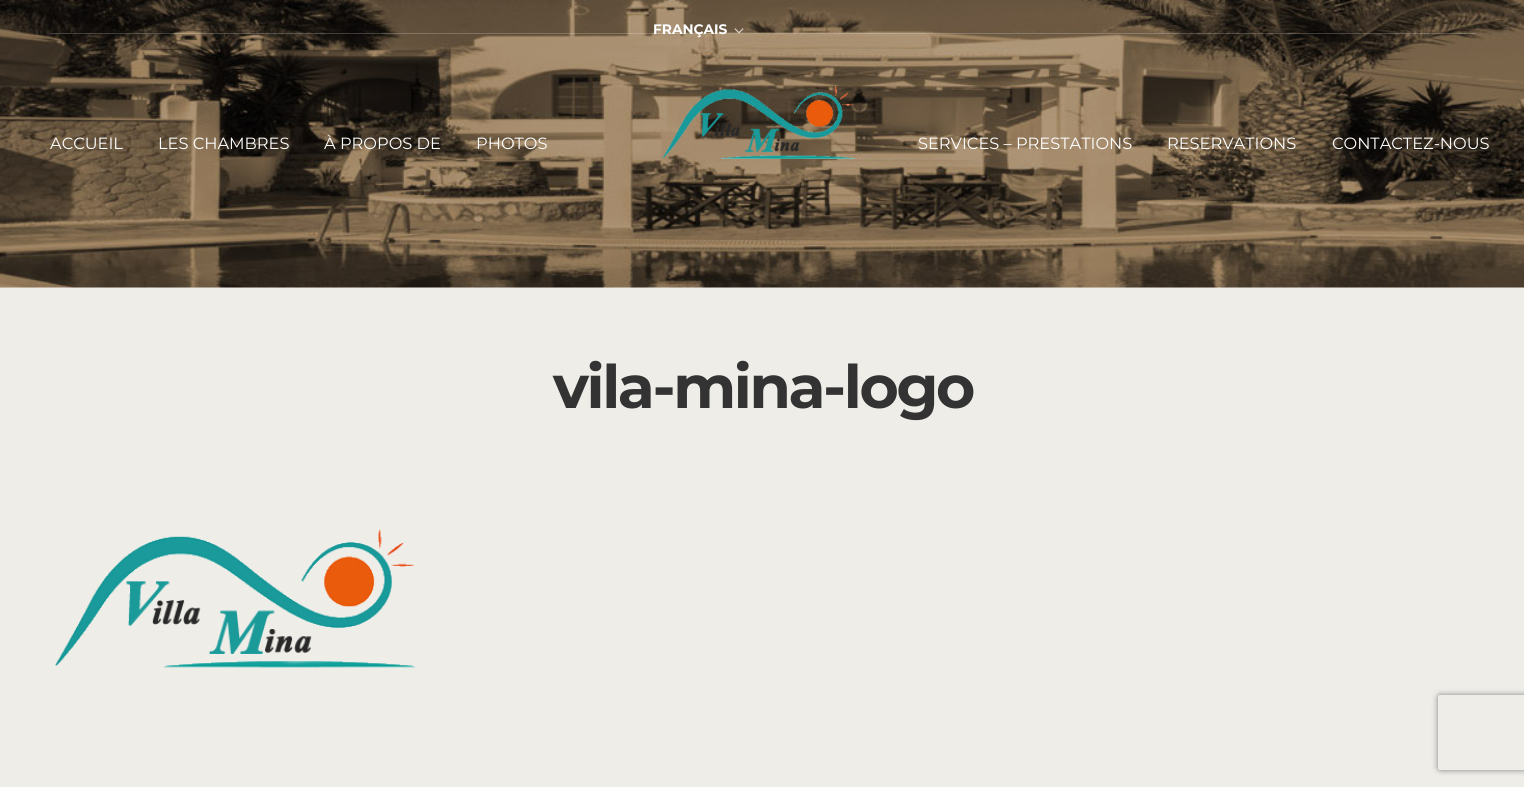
import math
import cairo


def use_color(cr, r, g, b):
  cr.set_source_rgb(r / 255, g / 255, b / 255)

def text(cr, x, y, s, family, size, color, bold=False, italic=False):
  cr.select_font_face(family, cairo.FONT_SLANT_ITALIC if italic else cairo.FONT_SLANT_NORMAL, cairo.FONT_WEIGHT_BOLD if bold else cairo.FONT_WEIGHT_NORMAL)
  cr.set_font_size(size)
  use_color(cr, *color)
  cr.move_to(x, y)
  cr.show_text(s)

def spaced_text(cr, x, y, s, letter, word):
  cr.move_to(x, y)
  for ch in s:
    cr.show_text(ch)
    cr.rel_move_to(letter + word * (ch == ' '), 0)

def round_rect(cr, x, y, w, h, r):
  cr.new_sub_path()
  for i, (u, v) in enumerate([(x + w - r, y + h - r), (x + r, y + h - r), (x + r, y + r), (x + w - r, y + r)]):
    cr.arc(u, v, r, i * math.pi / 2, (i + 1) * math.pi / 2)
  cr.close_path()

def shadow(cr, x, y, w, h, r, blur, alpha):
  cr.push_group_with_content(cairo.CONTENT_ALPHA)
  cr.set_operator(cairo.OPERATOR_SOURCE)
  for i in range(15, -16, -2):
    e = blur * i / 6
    if min(w, h) + 2 * e > 0:
      cr.set_source_rgba(0, 0, 0, alpha * math.erfc((i - 1) / 8.5) / 2)
      round_rect(cr, x - e, y - e, w + 2 * e, h + 2 * e, max(0, min(r + e + blur * .6, min(w, h) / 2 + e)))
      cr.fill()
  cr.mask(cr.pop_group())

def picture(cr, path, x, y, w, h):
  cr.save()
  cr.set_source_surface(cairo.ImageSurface.create_from_png(path), x, y)
  cr.rectangle(x, y, w, h)
  cr.fill()
  cr.restore()

def draw(cr):
  use_color(cr, 238, 237, 232)
  cr.paint()
  picture(cr, "img_01.png", 0, 0, 1524, 288)
  cr.set_source_rgba(1, 1, 1, 0.2)
  cr.rectangle(50, 33, 1425, 1)
  cr.fill()
  picture(cr, "img_02.png", 734, 28, 10, 6)
  picture(cr, "img_03.png", 662, 85, 193, 74)
  picture(cr, "img_04.png", 55, 529, 360, 139)
  cr.save()
  cr.set_fill_rule(cairo.FILL_RULE_EVEN_ODD)
  cr.new_path()
  cr.move_to(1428, 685)
  cr.line_to(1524, 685)
  cr.line_to(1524, 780)
  cr.line_to(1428, 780)
  cr.close_path()
  cr.move_to(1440.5, 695)
  cr.line_to(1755.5, 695)
  cr.curve_to(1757, 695, 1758, 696, 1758, 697.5)
  cr.line_to(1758, 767.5)
  cr.curve_to(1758, 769, 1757, 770, 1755.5, 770)
  cr.line_to(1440.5, 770)
  cr.curve_to(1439, 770, 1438, 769, 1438, 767.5)
  cr.line_to(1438, 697.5)
  cr.curve_to(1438, 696, 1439, 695, 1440.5, 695)
  cr.close_path()
  cr.clip()
  use_color(cr, 128, 128, 128)
  shadow(cr, 1438, 695, 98, 75, 2.5, 3, 1)
  cr.restore()
  text(cr, 653, 34, "FRANÇAIS", "Montserrat", 13.75, (255, 255, 255), bold=True)
  text(cr, 50, 149, "ACCUEIL", "Montserrat", 16.25, (255, 255, 255))
  text(cr, 158, 149, "LES CHAMBRES", "Montserrat", 16.25, (255, 255, 255))
  text(cr, 324, 149, "À PROPOS DE", "Montserrat", 16.25, (255, 255, 255))
  text(cr, 476, 149, "PHOTOS", "Montserrat", 16.25, (255, 255, 255))
  text(cr, 918, 149, "SERVICES – PRESTATIONS", "Montserrat", 16.25, (255, 255, 255))
  text(cr, 1167, 149, "RESERVATIONS", "Montserrat", 16.25, (255, 255, 255))
  text(cr, 1332, 149, "CONTACTEZ-NOUS", "Montserrat", 16.25, (255, 255, 255))
  cr.select_font_face("Montserrat", cairo.FONT_SLANT_NORMAL, cairo.FONT_WEIGHT_BOLD)
  cr.set_font_size(60)
  use_color(cr, 51, 51, 51)
  spaced_text(cr, 553, 408, "vila-mina-logo", -2.4, 0)


surface = cairo.ImageSurface(cairo.FORMAT_RGB24, 1524, 787)
cr = cairo.Context(surface)
options = cairo.FontOptions()
options.set_hint_metrics(cairo.HINT_METRICS_OFF)
options.set_hint_style(cairo.HINT_STYLE_NONE)
cr.set_font_options(options)
cr.set_miter_limit(4)
draw(cr)
surface.write_to_png("out.png")
